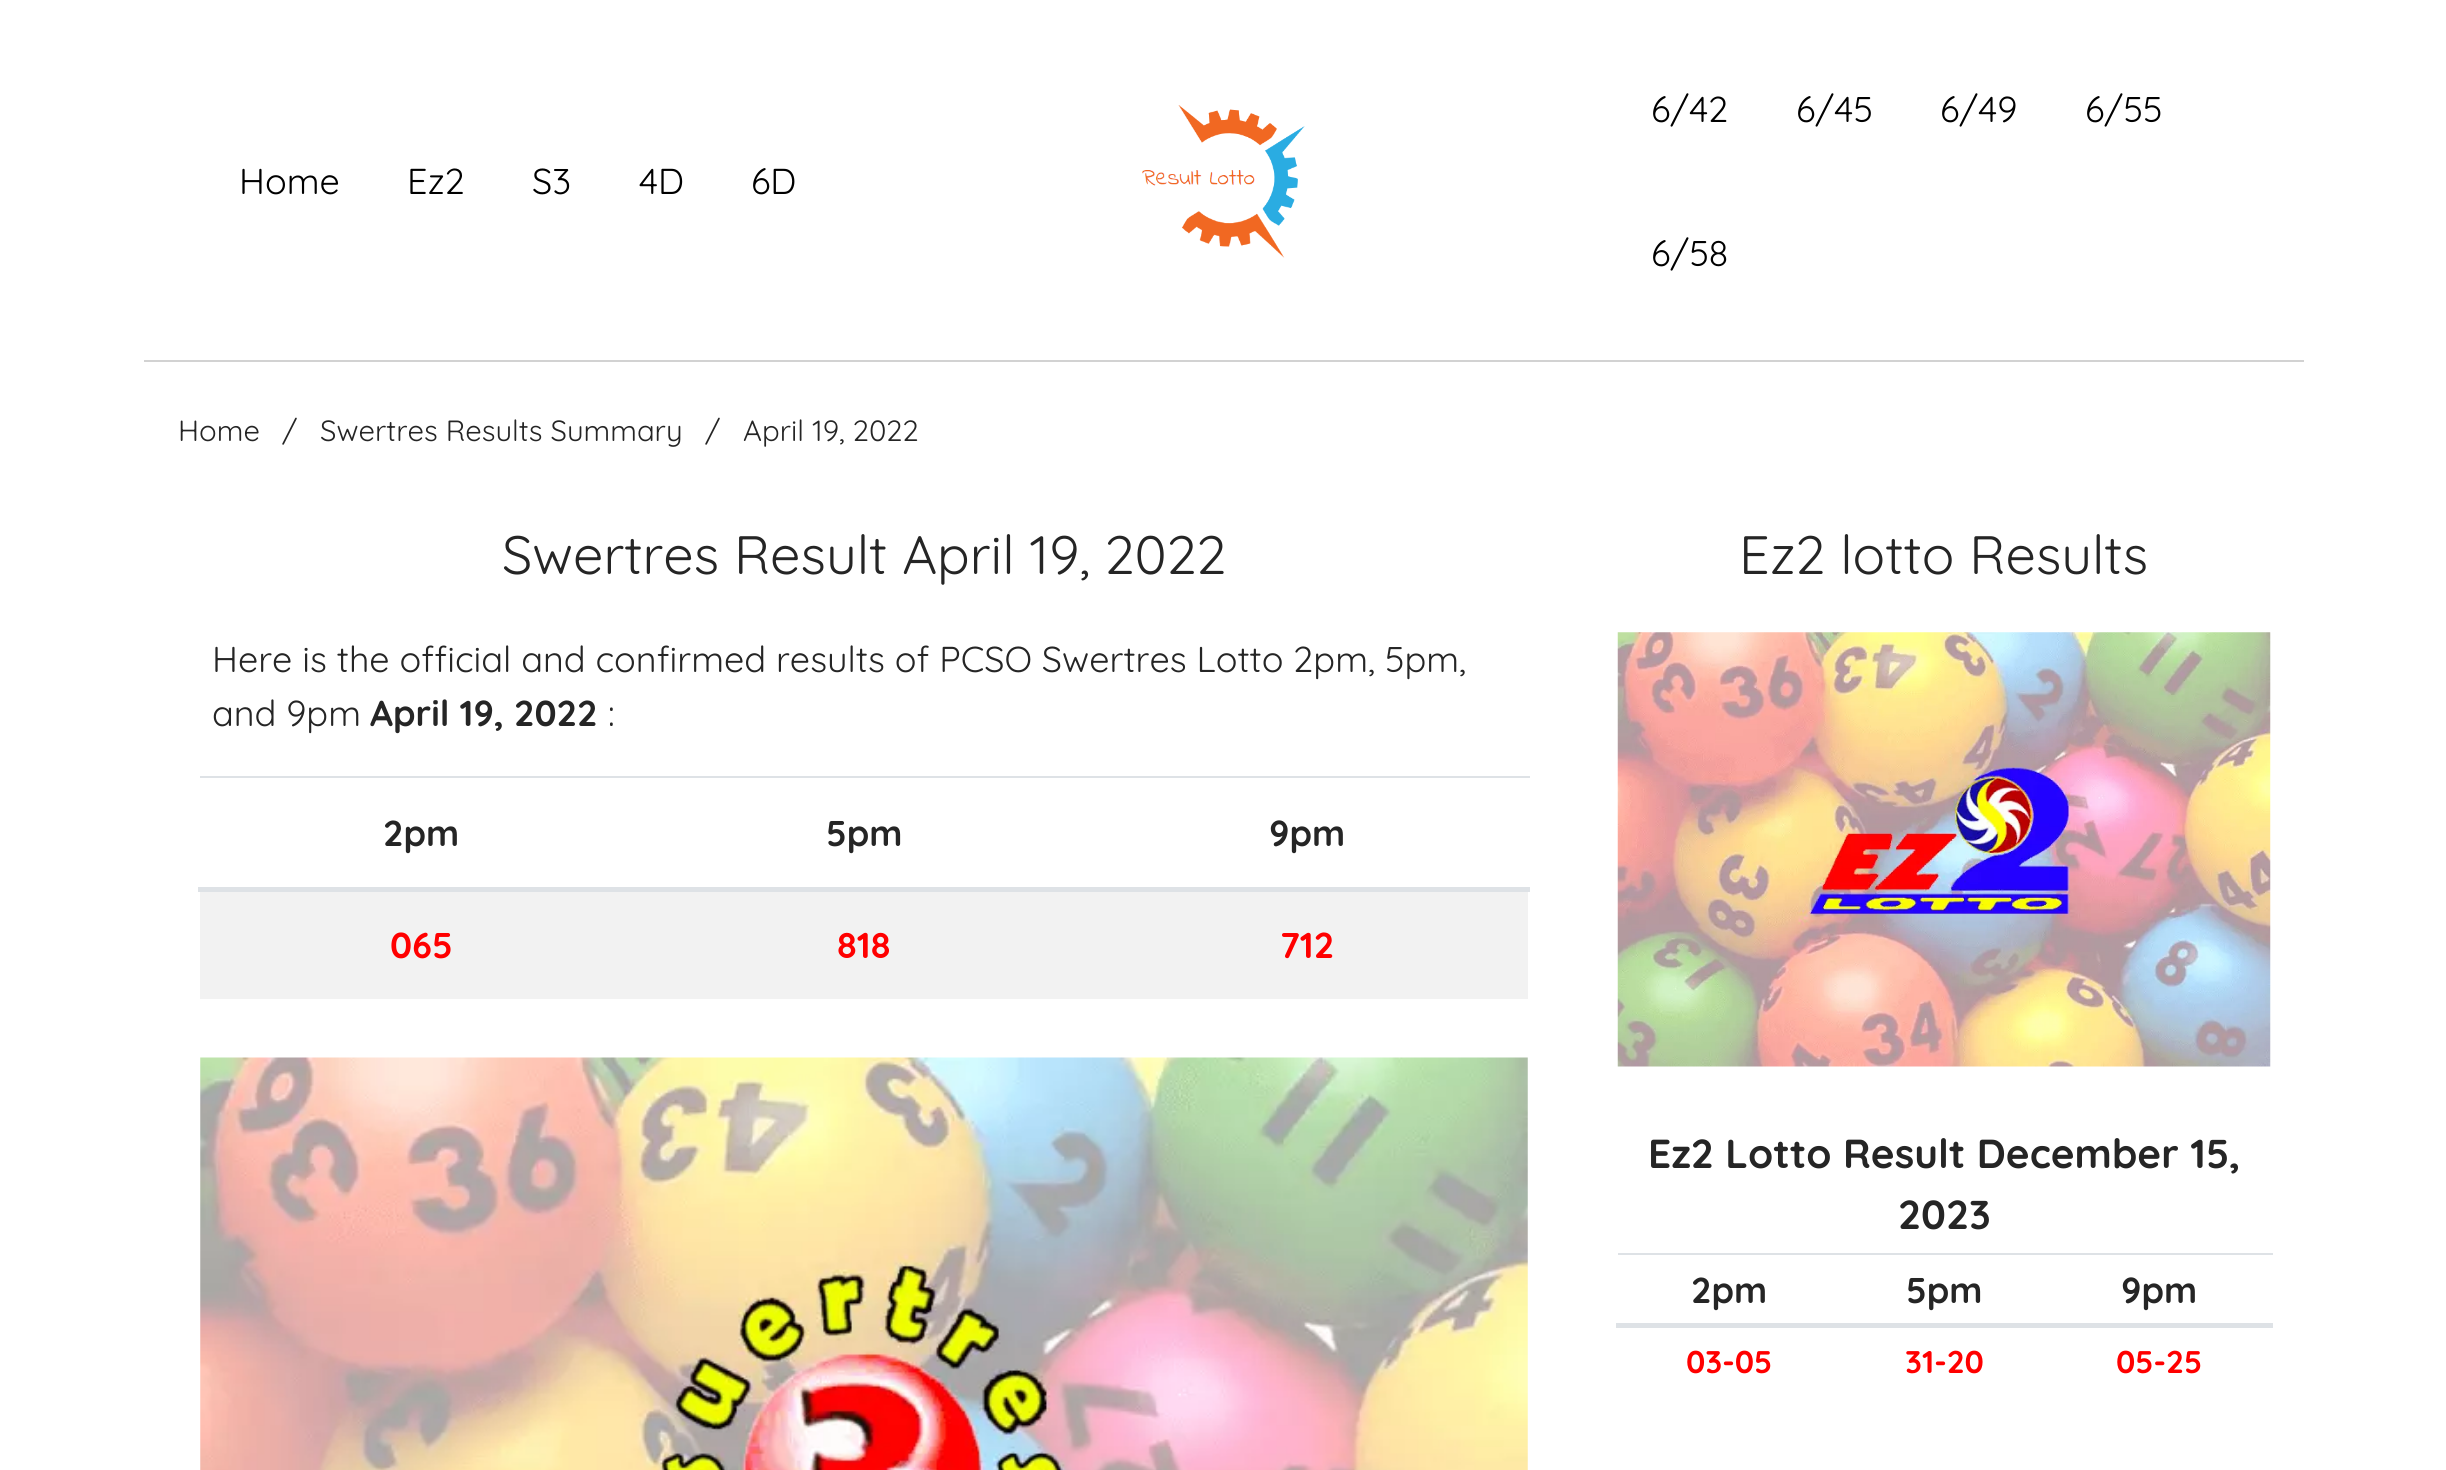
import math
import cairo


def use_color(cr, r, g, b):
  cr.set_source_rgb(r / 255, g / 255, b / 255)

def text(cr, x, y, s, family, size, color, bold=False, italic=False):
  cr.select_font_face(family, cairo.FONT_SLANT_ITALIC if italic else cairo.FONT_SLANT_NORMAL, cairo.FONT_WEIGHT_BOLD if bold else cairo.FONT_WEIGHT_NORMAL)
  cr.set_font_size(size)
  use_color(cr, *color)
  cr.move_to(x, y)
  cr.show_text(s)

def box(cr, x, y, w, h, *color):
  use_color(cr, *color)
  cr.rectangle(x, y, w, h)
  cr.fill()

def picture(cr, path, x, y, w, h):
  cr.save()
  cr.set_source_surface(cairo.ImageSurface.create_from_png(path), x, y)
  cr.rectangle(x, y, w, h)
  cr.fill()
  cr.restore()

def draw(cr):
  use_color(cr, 255, 255, 255)
  cr.paint()
  picture(cr, "img_01.png", 1142, 105, 163, 153)
  box(cr, 144, 360, 2160, 2, 210, 210, 210)
  box(cr, 200, 776, 1330, 2, 222, 226, 230)
  box(cr, 198, 887, 1332, 5, 222, 226, 230)
  box(cr, 200, 892, 1328, 107, 242, 242, 242)
  picture(cr, "img_02.png", 200, 1057, 1328, 413)
  picture(cr, "img_03.png", 1617, 632, 654, 435)
  box(cr, 1618, 1253, 655, 2, 222, 226, 230)
  box(cr, 1616, 1323, 657, 5, 222, 226, 230)
  text(cr, 239, 194, "Home", "Quicksand Light", 36, (0, 0, 0))
  text(cr, 407, 194, "Ez2", "Quicksand Light", 36, (0, 0, 0))
  text(cr, 532, 194, "S3", "Quicksand Light", 36, (0, 0, 0))
  text(cr, 639, 194, "4D", "Quicksand Light", 36, (0, 0, 0))
  text(cr, 751, 194, "6D", "Quicksand Light", 36, (0, 0, 0))
  text(cr, 1651, 122, "6/42", "Quicksand Light", 36, (0, 0, 0))
  text(cr, 1796, 122, "6/45", "Quicksand Light", 36, (0, 0, 0))
  text(cr, 1940, 122, "6/49", "Quicksand Light", 36, (0, 0, 0))
  text(cr, 2085, 122, "6/55", "Quicksand Light", 36, (0, 0, 0))
  text(cr, 1651, 266, "6/58", "Quicksand Light", 36, (0, 0, 0))
  text(cr, 178, 441, "Home", "Quicksand Light", 29.25, (37, 37, 37))
  text(cr, 282, 441, "/", "Quicksand Light", 29.25, (37, 37, 37))
  text(cr, 320, 441, "Swertres Results Summary", "Quicksand Light", 29.25, (37, 37, 37))
  text(cr, 705, 441, "/", "Quicksand Light", 29.25, (37, 37, 37))
  text(cr, 743, 441, "April 19, 2022", "Quicksand Light", 29.25, (37, 37, 37))
  text(cr, 502, 574, "Swertres Result April 19, 2022", "Quicksand Light", 54, (37, 37, 37))
  text(cr, 212, 672, "Here is the official and confirmed results of PCSO Swertres Lotto 2pm, 5pm,", "Quicksand Light", 36, (37, 37, 37))
  text(cr, 212, 726, "and 9pm", "Quicksand Light", 36, (37, 37, 37))
  text(cr, 370, 726, "April 19, 2022", "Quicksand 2 Light", 36, (37, 37, 37))
  text(cr, 608, 726, ":", "Quicksand Light", 36, (37, 37, 37))
  text(cr, 383, 846, "2pm", "Quicksand 2 Light", 36, (37, 37, 37))
  text(cr, 826, 846, "5pm", "Quicksand 2 Light", 36, (37, 37, 37))
  text(cr, 1269, 846, "9pm", "Quicksand 2 Light", 36, (37, 37, 37))
  text(cr, 390, 958, "065", "Quicksand 2 Light", 36, (255, 0, 0))
  text(cr, 837, 958, "818", "Quicksand 2 Light", 36, (255, 0, 0))
  text(cr, 1280, 958, "712", "Quicksand 2 Light", 36, (255, 0, 0))
  text(cr, 1739, 574, "Ez2 lotto Results", "Quicksand Light", 54, (37, 37, 37))
  text(cr, 1648, 1168, "Ez2 Lotto Result December 15,", "Quicksand 2 Light", 40.5, (37, 37, 37))
  text(cr, 1898, 1229, "2023", "Quicksand 2 Light", 40.5, (37, 37, 37))
  text(cr, 1691, 1303, "2pm", "Quicksand 2 Light", 36, (37, 37, 37))
  text(cr, 1906, 1303, "5pm", "Quicksand 2 Light", 36, (37, 37, 37))
  text(cr, 2121, 1303, "9pm", "Quicksand 2 Light", 36, (37, 37, 37))
  text(cr, 1686, 1373, "03-05", "Quicksand 2 Light", 31.5, (255, 0, 0))
  text(cr, 1905, 1373, "31-20", "Quicksand 2 Light", 31.5, (255, 0, 0))
  text(cr, 2116, 1373, "05-25", "Quicksand 2 Light", 31.5, (255, 0, 0))


surface = cairo.ImageSurface(cairo.FORMAT_RGB24, 2446, 1470)
cr = cairo.Context(surface)
options = cairo.FontOptions()
options.set_hint_metrics(cairo.HINT_METRICS_OFF)
options.set_hint_style(cairo.HINT_STYLE_NONE)
cr.set_font_options(options)
cr.set_miter_limit(4)
draw(cr)
surface.write_to_png("out.png")
